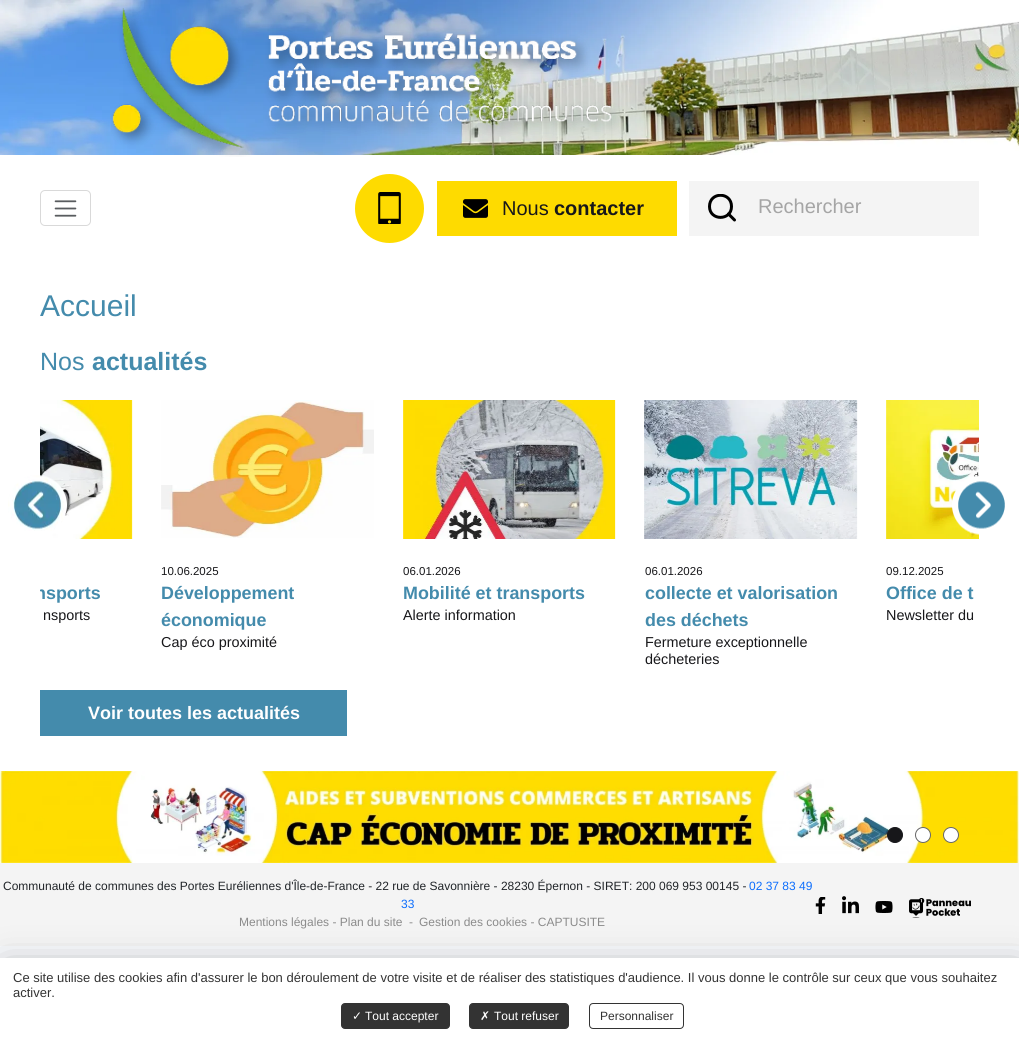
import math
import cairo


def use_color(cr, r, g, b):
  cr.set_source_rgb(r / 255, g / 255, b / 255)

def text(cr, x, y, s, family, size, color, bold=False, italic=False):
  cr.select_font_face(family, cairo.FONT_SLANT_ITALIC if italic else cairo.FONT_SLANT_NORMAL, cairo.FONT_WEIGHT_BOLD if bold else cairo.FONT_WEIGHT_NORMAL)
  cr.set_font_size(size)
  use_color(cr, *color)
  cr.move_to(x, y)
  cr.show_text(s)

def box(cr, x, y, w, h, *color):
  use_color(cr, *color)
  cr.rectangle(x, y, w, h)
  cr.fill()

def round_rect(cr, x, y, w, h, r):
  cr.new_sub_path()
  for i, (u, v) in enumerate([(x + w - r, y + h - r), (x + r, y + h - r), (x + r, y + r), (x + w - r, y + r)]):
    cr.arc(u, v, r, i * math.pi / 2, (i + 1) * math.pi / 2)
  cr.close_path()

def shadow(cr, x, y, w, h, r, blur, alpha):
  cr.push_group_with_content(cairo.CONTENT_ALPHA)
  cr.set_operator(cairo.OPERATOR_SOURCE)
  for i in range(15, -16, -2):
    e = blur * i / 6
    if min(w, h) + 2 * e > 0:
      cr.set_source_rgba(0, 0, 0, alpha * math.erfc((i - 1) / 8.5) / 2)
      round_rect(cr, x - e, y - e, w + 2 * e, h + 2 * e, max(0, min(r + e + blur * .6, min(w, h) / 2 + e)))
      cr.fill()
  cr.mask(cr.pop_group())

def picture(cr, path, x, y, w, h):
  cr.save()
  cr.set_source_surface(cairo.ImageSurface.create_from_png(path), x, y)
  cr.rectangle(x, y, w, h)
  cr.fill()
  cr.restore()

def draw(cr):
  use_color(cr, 247, 249, 252)
  cr.paint()
  box(cr, 0, 155, 1019, 616, 255, 255, 255)
  picture(cr, "img_01.png", 0, 0, 1019, 155)
  picture(cr, "img_02.png", 111, 8, 510, 149)
  round_rect(cr, 40.5, 190.5, 50, 35, 4.5)
  use_color(cr, 217, 217, 217)
  cr.set_line_width(1)
  cr.stroke()
  picture(cr, "img_03.png", 54, 200, 23, 17)
  use_color(cr, 254, 219, 0)
  cr.arc(389.5, 208.5, 34.5, 0, 2 * math.pi)
  cr.fill()
  picture(cr, "img_04.png", 378, 192, 23, 32)
  box(cr, 437, 181, 240, 55, 254, 219, 0)
  picture(cr, "img_05.png", 463, 199, 25, 19)
  box(cr, 689, 181, 290, 55, 244, 244, 244)
  cr.save()
  cr.rectangle(708, 194, 29, 29)
  cr.clip()
  cr.new_path()
  cr.move_to(731.5, 206.5)
  cr.curve_to(731.5, 221, 709.5, 221, 709.5, 206.5)
  cr.curve_to(709.5, 191.5, 731.5, 191.5, 731.5, 206.5)
  cr.close_path()
  use_color(cr, 0, 0, 0)
  cr.set_line_width(3)
  cr.set_line_cap(cairo.LINE_CAP_ROUND)
  cr.set_line_join(cairo.LINE_JOIN_ROUND)
  cr.stroke()
  cr.restore()
  cr.new_path()
  cr.move_to(734.5, 220)
  cr.line_to(728.5, 214)
  use_color(cr, 0, 0, 0)
  cr.set_line_width(3)
  cr.set_line_cap(cairo.LINE_CAP_ROUND)
  cr.set_line_join(cairo.LINE_JOIN_ROUND)
  cr.stroke()
  picture(cr, "img_08.png", 40, 400, 93, 139)
  picture(cr, "img_06.png", 8, 475, 59, 56)
  picture(cr, "img_12.png", 886, 400, 93, 139)
  picture(cr, "img_07.png", 952, 475, 53, 60)
  picture(cr, "img_09.png", 161, 400, 213, 138)
  picture(cr, "img_10.png", 403, 400, 213, 139)
  picture(cr, "img_11.png", 644, 400, 214, 139)
  box(cr, 40, 690, 307, 46, 68, 139, 172)
  picture(cr, "img_13.png", 0, 771, 1019, 92)
  use_color(cr, 23, 23, 26)
  cr.arc(895, 835, 7.5, 0, 2 * math.pi)
  cr.fill_preserve()
  cr.set_line_width(1)
  cr.set_line_cap(cairo.LINE_CAP_BUTT)
  cr.set_line_join(cairo.LINE_JOIN_MITER)
  cr.stroke()
  use_color(cr, 255, 255, 255)
  cr.arc(923, 835, 7.5, 0, 2 * math.pi)
  cr.fill_preserve()
  use_color(cr, 103, 103, 103)
  cr.stroke()
  use_color(cr, 255, 255, 255)
  cr.arc(951, 835, 7.5, 0, 2 * math.pi)
  cr.fill_preserve()
  use_color(cr, 103, 103, 103)
  cr.stroke()
  box(cr, 0, 863, 1019, 83, 244, 244, 244)
  picture(cr, "img_14.png", 815, 897, 11, 17)
  picture(cr, "img_15.png", 842, 896, 17, 18)
  picture(cr, "img_16.png", 875, 901, 18, 12)
  picture(cr, "img_17.png", 909, 898, 62, 20)
  use_color(cr, 0, 0, 0)
  shadow(cr, 6, 970, 1013, 69, 0, 18, 0.4)
  box(cr, 0, 958, 1019, 81, 255, 255, 255)
  use_color(cr, 51, 51, 51)
  round_rect(cr, 341.5, 1003.5, 108, 25, 3.5)
  cr.fill_preserve()
  cr.stroke()
  round_rect(cr, 469.5, 1003.5, 99, 25, 3.5)
  cr.fill_preserve()
  cr.stroke()
  round_rect(cr, 589.5, 1003.5, 94, 25, 3.5)
  cr.stroke()
  text(cr, 502, 215, "Nous", "Liberation Sans", 20, (23, 23, 26))
  text(cr, 554, 215, "contacter", "Liberation Sans", 20, (23, 23, 26), bold=True)
  text(cr, 758, 213, "Rechercher", "Liberation Sans", 20, (165, 165, 165))
  text(cr, 40, 316, "Accueil", "Liberation Sans", 30, (68, 139, 172))
  text(cr, 40, 370, "Nos", "Liberation Sans", 25, (68, 139, 172))
  text(cr, 92, 370, "actualités", "Liberation Sans", 25, (68, 139, 172), bold=True)
  cr.save()
  cr.rectangle(40, 400, 939, 276)
  cr.clip()
  text(cr, 35, 599, "nsports", "Liberation Sans", 17.9, (68, 139, 172), bold=True)
  cr.restore()
  text(cr, 43, 620, "nsports", "Liberation Sans", 14.4, (23, 23, 26))
  text(cr, 161, 575, "10.06.2025", "Liberation Sans", 11.5, (23, 23, 26))
  text(cr, 161, 599, "Développement", "Liberation Sans", 17.9, (68, 139, 172), bold=True)
  text(cr, 161, 626, "économique", "Liberation Sans", 17.9, (68, 139, 172), bold=True)
  text(cr, 161, 647, "Cap éco proximité", "Liberation Sans", 14.4, (23, 23, 26))
  text(cr, 403, 575, "06.01.2026", "Liberation Sans", 11.5, (23, 23, 26))
  text(cr, 403, 599, "Mobilité et transports", "Liberation Sans", 17.9, (68, 139, 172), bold=True)
  text(cr, 403, 620, "Alerte information", "Liberation Sans", 14.4, (23, 23, 26))
  text(cr, 645, 575, "06.01.2026", "Liberation Sans", 11.5, (23, 23, 26))
  text(cr, 645, 599, "collecte et valorisation", "Liberation Sans", 17.9, (68, 139, 172), bold=True)
  text(cr, 645, 626, "des déchets", "Liberation Sans", 17.9, (68, 139, 172), bold=True)
  text(cr, 645, 647, "Fermeture exceptionnelle", "Liberation Sans", 14.4, (23, 23, 26))
  text(cr, 645, 664, "décheteries", "Liberation Sans", 14.4, (23, 23, 26))
  text(cr, 886, 575, "09.12.2025", "Liberation Sans", 11.5, (23, 23, 26))
  text(cr, 886, 599, "Office de t", "Liberation Sans", 17.9, (68, 139, 172), bold=True)
  text(cr, 886, 620, "Newsletter du", "Liberation Sans", 14.4, (23, 23, 26))
  text(cr, 88, 719, "Voir toutes les actualités", "Liberation Sans", 18, (255, 255, 255), bold=True)
  text(cr, 3, 890, "Communauté de communes des Portes Euréliennes d'Île-de-France - 22 rue de Savonnière - 28230 Épernon - SIRET: 200 069 953 00145 -", "Liberation Sans", 12, (33, 37, 41))
  text(cr, 749, 890, "02 37 83 49", "Liberation Sans", 12, (13, 110, 253))
  text(cr, 401, 908, "33", "Liberation Sans", 12, (13, 110, 253))
  text(cr, 239, 926, "Mentions légales - Plan du site", "Liberation Sans", 12, (139, 139, 139))
  text(cr, 409, 926, "-", "Liberation Sans", 12, (139, 139, 139))
  text(cr, 419, 926, "Gestion des cookies - CAPTUSITE", "Liberation Sans", 12, (139, 139, 139))
  text(cr, 13, 982, "Ce site utilise des cookies afin d'assurer le bon déroulement de votre visite et de réaliser des statistiques d'audience. Il vous donne le contrôle sur ceux que vous souhaitez", "Liberation Sans", 13, (51, 51, 51))
  text(cr, 13, 997, "activer.", "Liberation Sans", 13, (51, 51, 51))
  text(cr, 352, 1020, "✓", "DejaVu Sans", 12, (255, 255, 255))
  text(cr, 365, 1020, "Tout accepter", "Liberation Sans", 12, (255, 255, 255))
  text(cr, 480, 1020, "✗", "DejaVu Sans", 12, (255, 255, 255))
  text(cr, 494, 1020, "Tout refuser", "Liberation Sans", 12, (255, 255, 255))
  text(cr, 600, 1020, "Personnaliser", "Liberation Sans", 12, (51, 51, 51))


surface = cairo.ImageSurface(cairo.FORMAT_RGB24, 1019, 1039)
cr = cairo.Context(surface)
options = cairo.FontOptions()
options.set_hint_metrics(cairo.HINT_METRICS_OFF)
options.set_hint_style(cairo.HINT_STYLE_NONE)
cr.set_font_options(options)
cr.set_miter_limit(4)
draw(cr)
surface.write_to_png("out.png")
